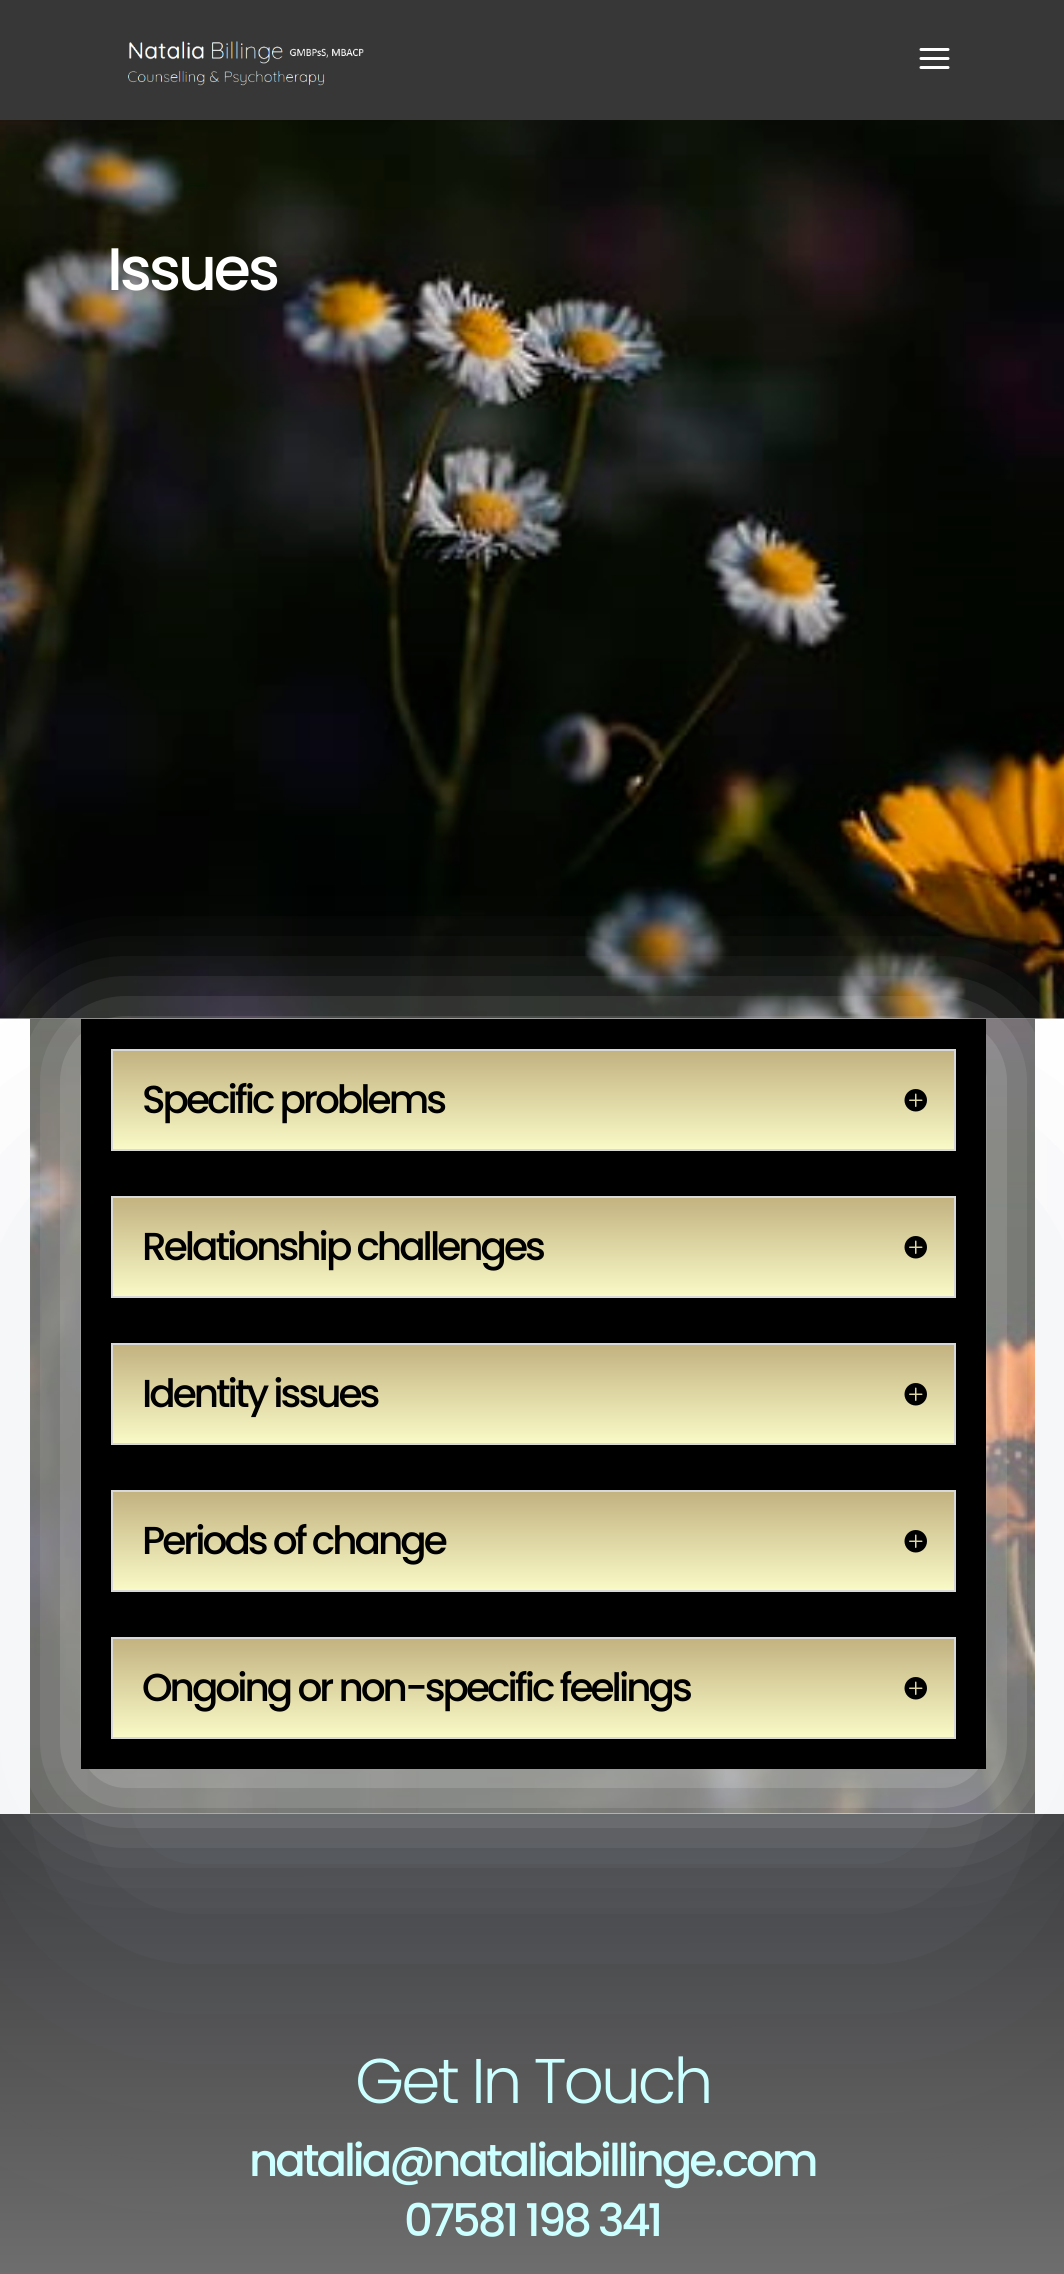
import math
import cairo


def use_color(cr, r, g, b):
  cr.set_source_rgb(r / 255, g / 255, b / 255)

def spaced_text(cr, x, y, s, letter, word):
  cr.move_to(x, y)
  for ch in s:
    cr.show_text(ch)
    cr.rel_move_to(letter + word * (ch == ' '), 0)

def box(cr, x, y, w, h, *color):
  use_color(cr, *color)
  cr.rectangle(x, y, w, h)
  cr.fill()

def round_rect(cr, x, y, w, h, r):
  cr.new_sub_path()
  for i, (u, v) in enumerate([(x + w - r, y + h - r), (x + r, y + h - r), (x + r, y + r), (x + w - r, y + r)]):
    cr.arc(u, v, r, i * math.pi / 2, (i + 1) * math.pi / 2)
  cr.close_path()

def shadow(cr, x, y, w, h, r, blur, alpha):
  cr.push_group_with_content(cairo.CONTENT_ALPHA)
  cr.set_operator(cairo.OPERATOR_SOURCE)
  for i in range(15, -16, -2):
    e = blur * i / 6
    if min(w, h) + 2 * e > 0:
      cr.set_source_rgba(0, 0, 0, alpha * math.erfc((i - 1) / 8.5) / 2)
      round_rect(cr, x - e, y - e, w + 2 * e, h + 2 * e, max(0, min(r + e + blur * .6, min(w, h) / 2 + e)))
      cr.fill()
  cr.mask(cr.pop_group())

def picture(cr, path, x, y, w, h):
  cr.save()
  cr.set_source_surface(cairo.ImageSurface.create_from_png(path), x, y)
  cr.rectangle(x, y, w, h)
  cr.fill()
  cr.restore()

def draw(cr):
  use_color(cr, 255, 255, 255)
  cr.paint()
  picture(cr, "img_03.png", 0, 120, 1064, 899)
  cr.set_source_rgba(0, 0, 0, 0.1)
  cr.rectangle(0, 120, 509, 2)
  cr.fill()
  box(cr, 0, 0, 1064, 120, 55, 55, 55)
  picture(cr, "img_01.png", 127, 41, 237, 45)
  picture(cr, "img_02.png", 919, 48, 31, 21)
  gradient = cairo.LinearGradient(532, 1814, 533, 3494)
  gradient.add_color_stop_rgba(0, 0.216, 0.216, 0.216, 1)
  gradient.add_color_stop_rgba(1, 1, 1, 1, 1)
  cr.set_source(gradient)
  cr.rectangle(0, 1814, 1064, 460)
  cr.fill()
  use_color(cr, 131, 146, 167)
  shadow(cr, 105, 1244, 855, 645, 0, 150, 0.32)
  gradient = cairo.LinearGradient(346, 903, 719, 1929)
  gradient.add_color_stop_rgba(0, 0.216, 0.216, 0.216, 1)
  gradient.add_color_stop_rgba(1, 1, 1, 1, 1)
  cr.set_source(gradient)
  cr.rectangle(30, 1813, 1005, 1)
  cr.fill()
  picture(cr, "img_04.png", 30, 1018, 1005, 796)
  use_color(cr, 255, 255, 255)
  shadow(cr, 90, 1046, 887, 732, 0, 60, 0.74)
  box(cr, 81, 1019, 905, 750, 0, 0, 0)
  gradient = cairo.LinearGradient(533, 1050, 533, 1149)
  gradient.add_color_stop_rgba(0, 0.761, 0.698, 0.502, 1)
  gradient.add_color_stop_rgba(1, 0.976, 0.98, 0.78, 1)
  cr.set_source(gradient)
  cr.rectangle(113, 1051, 841, 98)
  cr.fill()
  cr.rectangle(112, 1050, 843, 100)
  use_color(cr, 217, 217, 217)
  cr.stroke()
  picture(cr, "img_05.png", 904, 1089, 23, 23)
  gradient = cairo.LinearGradient(533, 1197, 533, 1296)
  gradient.add_color_stop_rgba(0, 0.761, 0.698, 0.502, 1)
  gradient.add_color_stop_rgba(1, 0.976, 0.98, 0.78, 1)
  cr.set_source(gradient)
  cr.rectangle(113, 1198, 841, 98)
  cr.fill()
  cr.rectangle(112, 1197, 843, 100)
  use_color(cr, 217, 217, 217)
  cr.stroke()
  picture(cr, "img_05.png", 904, 1236, 23, 23)
  gradient = cairo.LinearGradient(533, 1344, 533, 1443)
  gradient.add_color_stop_rgba(0, 0.761, 0.698, 0.502, 1)
  gradient.add_color_stop_rgba(1, 0.976, 0.98, 0.78, 1)
  cr.set_source(gradient)
  cr.rectangle(113, 1345, 841, 98)
  cr.fill()
  cr.rectangle(112, 1344, 843, 100)
  use_color(cr, 217, 217, 217)
  cr.stroke()
  picture(cr, "img_05.png", 904, 1383, 23, 23)
  gradient = cairo.LinearGradient(533, 1491, 533, 1590)
  gradient.add_color_stop_rgba(0, 0.761, 0.698, 0.502, 1)
  gradient.add_color_stop_rgba(1, 0.976, 0.98, 0.78, 1)
  cr.set_source(gradient)
  cr.rectangle(113, 1492, 841, 98)
  cr.fill()
  cr.rectangle(112, 1491, 843, 100)
  use_color(cr, 217, 217, 217)
  cr.stroke()
  picture(cr, "img_05.png", 904, 1530, 23, 23)
  gradient = cairo.LinearGradient(533, 1638, 533, 1737)
  gradient.add_color_stop_rgba(0, 0.761, 0.698, 0.502, 1)
  gradient.add_color_stop_rgba(1, 0.976, 0.98, 0.78, 1)
  cr.set_source(gradient)
  cr.rectangle(113, 1639, 841, 98)
  cr.fill()
  cr.rectangle(112, 1638, 843, 100)
  use_color(cr, 217, 217, 217)
  cr.stroke()
  picture(cr, "img_05.png", 904, 1677, 23, 23)
  cr.select_font_face("Poppins Medium")
  cr.set_font_size(60)
  use_color(cr, 255, 255, 255)
  spaced_text(cr, 107, 290, "Issues", -3, 0)
  cr.set_font_size(39)
  use_color(cr, 0, 0, 0)
  spaced_text(cr, 142, 1113, "Specific problems", -3, 0)
  spaced_text(cr, 142, 1260, "Relationship challenges", -3, 0)
  spaced_text(cr, 142, 1407, "Identity issues", -3, 0)
  spaced_text(cr, 142, 1554, "Periods of change", -3, 0)
  spaced_text(cr, 142, 1701, "Ongoing or non-specific feelings", -3, 0)
  cr.select_font_face("Poppins Light")
  cr.set_font_size(63)
  use_color(cr, 204, 255, 255)
  spaced_text(cr, 355, 2103, "Get In Touch", -3, 0)
  cr.select_font_face("Poppins Medium")
  cr.set_font_size(45)
  spaced_text(cr, 249, 2176, "natalia@nataliabillinge.com", -3, 0)
  spaced_text(cr, 404, 2236, "07581 198 341", -3, 0)


surface = cairo.ImageSurface(cairo.FORMAT_RGB24, 1064, 2274)
cr = cairo.Context(surface)
options = cairo.FontOptions()
options.set_hint_metrics(cairo.HINT_METRICS_OFF)
options.set_hint_style(cairo.HINT_STYLE_NONE)
cr.set_font_options(options)
cr.set_miter_limit(4)
draw(cr)
surface.write_to_png("out.png")
